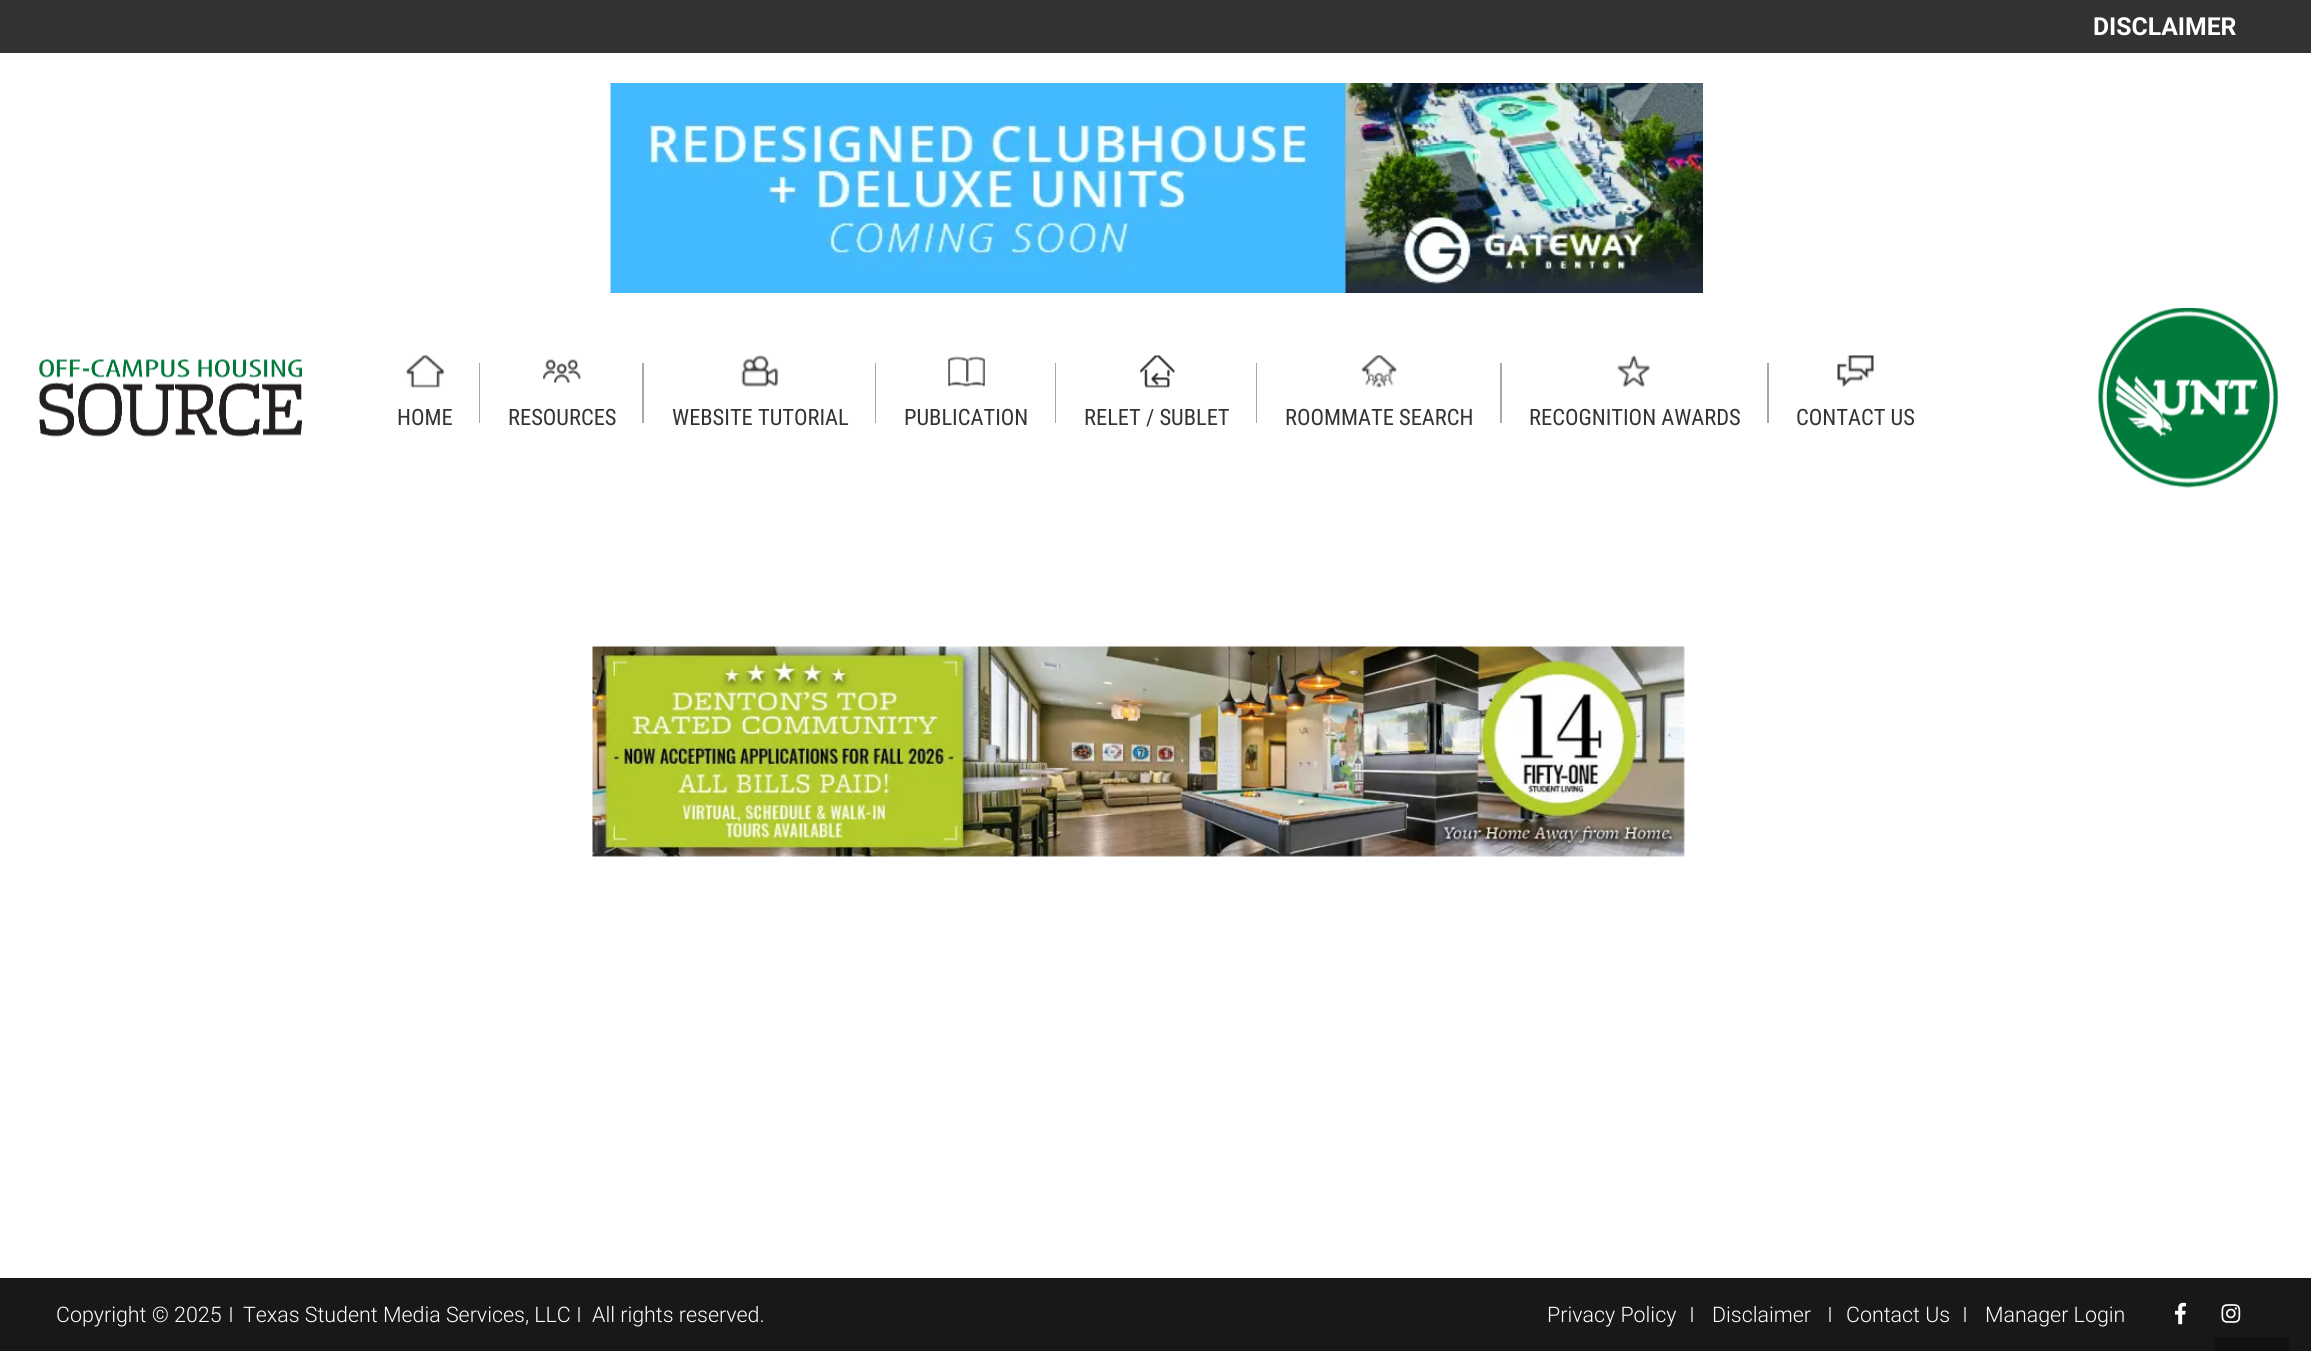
import math
import cairo


def use_color(cr, r, g, b):
  cr.set_source_rgb(r / 255, g / 255, b / 255)

def text(cr, x, y, s, family, size, color, bold=False, italic=False):
  cr.select_font_face(family, cairo.FONT_SLANT_ITALIC if italic else cairo.FONT_SLANT_NORMAL, cairo.FONT_WEIGHT_BOLD if bold else cairo.FONT_WEIGHT_NORMAL)
  cr.set_font_size(size)
  use_color(cr, *color)
  cr.move_to(x, y)
  cr.show_text(s)

def box(cr, x, y, w, h, *color):
  use_color(cr, *color)
  cr.rectangle(x, y, w, h)
  cr.fill()

def picture(cr, path, x, y, w, h):
  cr.save()
  cr.set_source_surface(cairo.ImageSurface.create_from_png(path), x, y)
  cr.rectangle(x, y, w, h)
  cr.fill()
  cr.restore()

def draw(cr):
  use_color(cr, 255, 255, 255)
  cr.paint()
  box(cr, 0, 0, 2311, 53, 51, 51, 51)
  picture(cr, "img_01.png", 610, 83, 1093, 210)
  picture(cr, "img_02.png", 39, 359, 263, 78)
  picture(cr, "img_03.png", 406, 355, 38, 33)
  box(cr, 479, 363, 1, 60, 167, 167, 167)
  picture(cr, "img_04.png", 543, 359, 38, 24)
  box(cr, 642, 363, 2, 60, 167, 167, 167)
  picture(cr, "img_05.png", 741, 355, 38, 32)
  box(cr, 875, 363, 1, 60, 167, 167, 167)
  picture(cr, "img_06.png", 948, 356, 38, 31)
  box(cr, 1055, 363, 1, 60, 167, 167, 167)
  picture(cr, "img_07.png", 1140, 355, 35, 33)
  box(cr, 1256, 363, 1, 60, 167, 167, 167)
  picture(cr, "img_08.png", 1361, 355, 36, 33)
  box(cr, 1500, 363, 2, 60, 167, 167, 167)
  picture(cr, "img_09.png", 1617, 355, 33, 33)
  box(cr, 1767, 363, 2, 60, 167, 167, 167)
  picture(cr, "img_10.png", 1837, 355, 37, 33)
  picture(cr, "img_11.png", 2098, 308, 181, 180)
  picture(cr, "img_12.png", 592, 646, 1093, 211)
  box(cr, 0, 1278, 2311, 73, 24, 24, 24)
  box(cr, 230, 1307, 2, 15, 167, 167, 167)
  box(cr, 578, 1307, 2, 15, 167, 167, 167)
  box(cr, 1691, 1307, 2, 15, 167, 167, 167)
  box(cr, 1829, 1307, 2, 15, 167, 167, 167)
  box(cr, 1964, 1307, 2, 15, 167, 167, 167)
  picture(cr, "img_13.png", 2175, 1302, 12, 23)
  picture(cr, "img_14.png", 2221, 1304, 20, 19)
  box(cr, 2214, 1337, 75, 14, 17, 17, 17)
  text(cr, 2093, 35, "DISCLAIMER", "Roboto", 24.75, (255, 255, 255), bold=True)
  text(cr, 397, 425, "HOME", "Roboto Condensed", 22.5, (51, 51, 51))
  text(cr, 508, 425, "RESOURCES", "Roboto Condensed", 22.5, (51, 51, 51))
  text(cr, 672, 425, "WEBSITE TUTORIAL", "Roboto Condensed", 22.5, (51, 51, 51))
  text(cr, 904, 425, "PUBLICATION", "Roboto Condensed", 22.5, (51, 51, 51))
  text(cr, 1084, 425, "RELET / SUBLET", "Roboto Condensed", 22.5, (51, 51, 51))
  text(cr, 1285, 425, "ROOMMATE SEARCH", "Roboto Condensed", 22.5, (51, 51, 51))
  text(cr, 1529, 425, "RECOGNITION AWARDS", "Roboto Condensed", 22.5, (51, 51, 51))
  text(cr, 1796, 425, "CONTACT US", "Roboto Condensed", 22.5, (51, 51, 51))
  text(cr, 56, 1322, "Copyright © 2025", "Roboto Light", 21.4, (255, 255, 255))
  text(cr, 243, 1322, "Texas Student Media Services, LLC", "Roboto Light", 21.4, (255, 255, 255))
  text(cr, 592, 1322, "All rights reserved.", "Roboto Light", 21.4, (255, 255, 255))
  text(cr, 1547, 1322, "Privacy Policy", "Roboto Light", 21.4, (255, 255, 255))
  text(cr, 1712, 1322, "Disclaimer", "Roboto Light", 21.4, (255, 255, 255))
  text(cr, 1846, 1322, "Contact Us", "Roboto Light", 21.4, (255, 255, 255))
  text(cr, 1985, 1322, "Manager Login", "Roboto Light", 21.4, (255, 255, 255))


surface = cairo.ImageSurface(cairo.FORMAT_RGB24, 2311, 1351)
cr = cairo.Context(surface)
options = cairo.FontOptions()
options.set_hint_metrics(cairo.HINT_METRICS_OFF)
options.set_hint_style(cairo.HINT_STYLE_NONE)
cr.set_font_options(options)
cr.set_miter_limit(4)
draw(cr)
surface.write_to_png("out.png")
